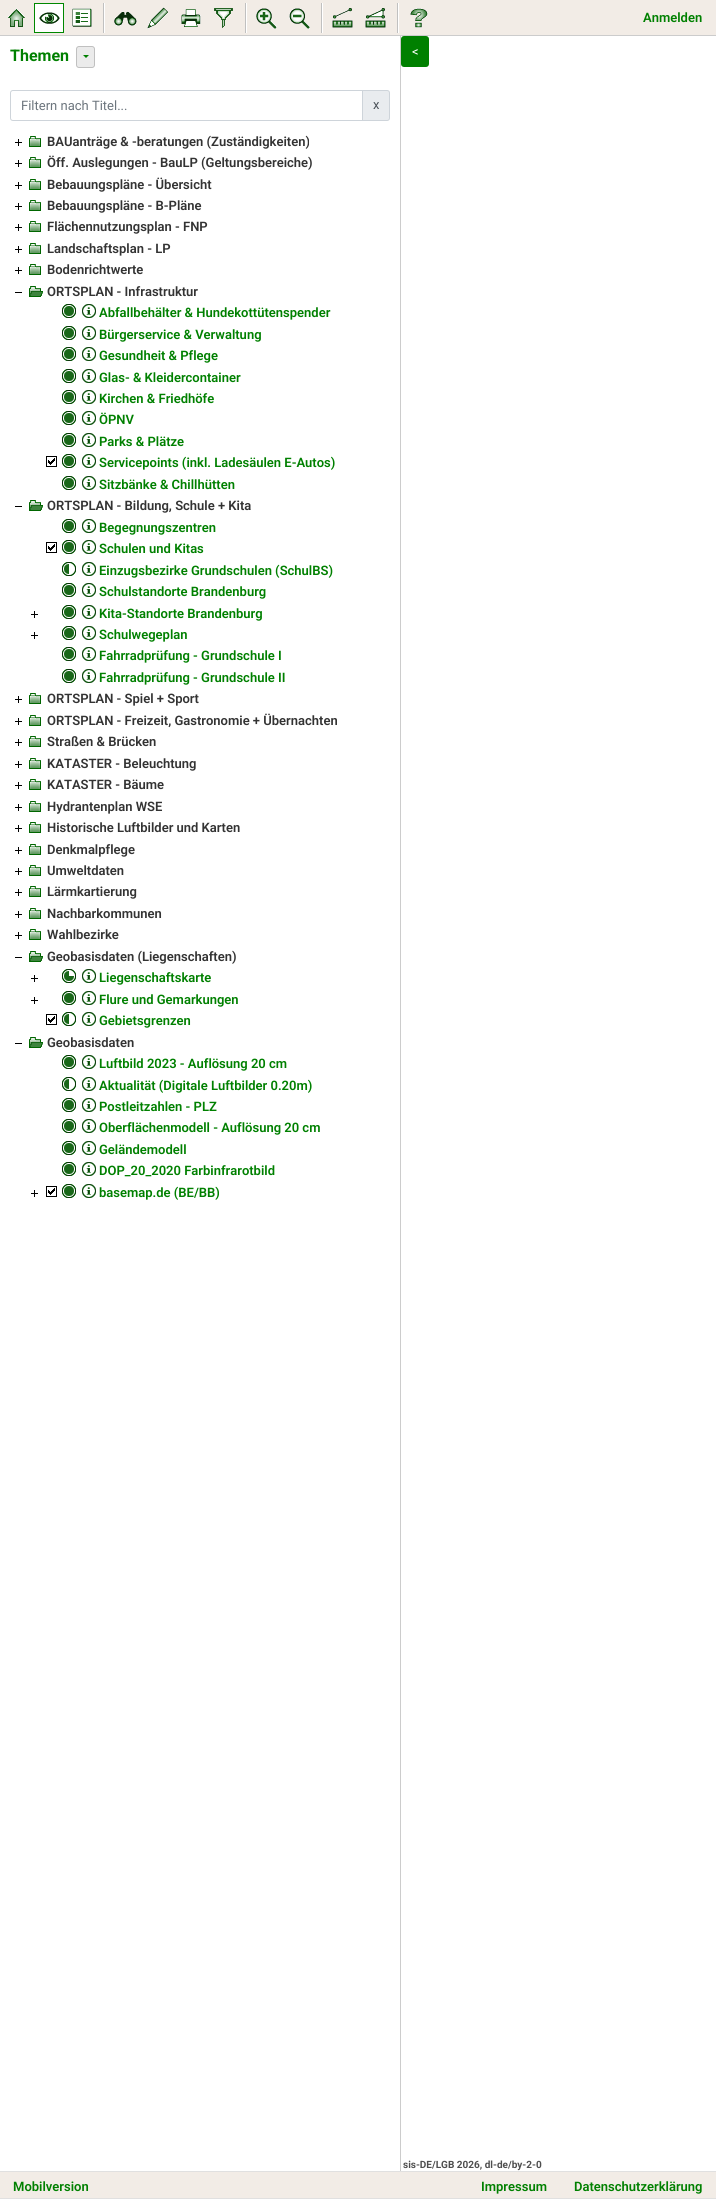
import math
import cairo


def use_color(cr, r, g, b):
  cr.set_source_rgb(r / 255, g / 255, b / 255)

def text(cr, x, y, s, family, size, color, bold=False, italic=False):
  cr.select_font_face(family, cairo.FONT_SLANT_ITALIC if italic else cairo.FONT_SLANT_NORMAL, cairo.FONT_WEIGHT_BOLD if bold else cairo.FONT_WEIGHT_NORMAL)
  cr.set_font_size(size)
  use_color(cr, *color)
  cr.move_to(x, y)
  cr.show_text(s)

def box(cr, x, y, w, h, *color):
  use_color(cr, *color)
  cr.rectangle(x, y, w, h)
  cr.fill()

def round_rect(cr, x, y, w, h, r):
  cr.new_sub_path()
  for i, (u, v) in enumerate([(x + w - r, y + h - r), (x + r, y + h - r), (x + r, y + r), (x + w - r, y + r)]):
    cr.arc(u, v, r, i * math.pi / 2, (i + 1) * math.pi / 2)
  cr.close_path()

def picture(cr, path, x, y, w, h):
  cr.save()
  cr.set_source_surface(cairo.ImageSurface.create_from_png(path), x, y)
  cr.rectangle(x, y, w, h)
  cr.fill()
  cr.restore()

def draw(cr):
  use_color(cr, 255, 255, 255)
  cr.paint()
  box(cr, 0, 0, 716, 35, 242, 236, 230)
  box(cr, 0, 35, 716, 1, 204, 204, 204)
  picture(cr, "img_01.png", 8, 8, 17, 19)
  box(cr, 35, 4, 28, 28, 255, 255, 255)
  picture(cr, "img_02.png", 39, 12, 21, 12)
  cr.rectangle(34.5, 3.5, 29, 29)
  use_color(cr, 0, 136, 0)
  cr.set_line_width(1)
  cr.stroke()
  picture(cr, "img_03.png", 72, 8, 20, 19)
  box(cr, 104, 3, 1, 30, 255, 255, 255)
  box(cr, 103, 3, 1, 30, 192, 192, 192)
  picture(cr, "img_04.png", 114, 11, 23, 15)
  picture(cr, "img_05.png", 147, 7, 21, 22)
  picture(cr, "img_06.png", 181, 9, 20, 18)
  picture(cr, "img_07.png", 214, 8, 19, 20)
  box(cr, 246, 3, 1, 30, 255, 255, 255)
  box(cr, 245, 3, 1, 30, 192, 192, 192)
  picture(cr, "img_08.png", 256, 8, 21, 21)
  picture(cr, "img_09.png", 289, 8, 21, 21)
  box(cr, 322, 3, 1, 30, 255, 255, 255)
  box(cr, 321, 3, 1, 30, 192, 192, 192)
  picture(cr, "img_10.png", 332, 8, 21, 20)
  picture(cr, "img_11.png", 365, 8, 21, 20)
  box(cr, 398, 3, 1, 30, 255, 255, 255)
  box(cr, 397, 3, 1, 30, 192, 192, 192)
  picture(cr, "img_12.png", 410, 8, 18, 20)
  box(cr, 400, 36, 1, 2135, 204, 204, 204)
  use_color(cr, 235, 235, 235)
  round_rect(cr, 76.5, 46.5, 18, 21, 2.5)
  cr.fill_preserve()
  use_color(cr, 192, 192, 192)
  cr.stroke()
  use_color(cr, 0, 128, 0)
  cr.new_path()
  cr.move_to(83, 55)
  cr.line_to(89, 55)
  cr.line_to(86, 58)
  cr.close_path()
  cr.fill()
  use_color(cr, 233, 236, 239)
  cr.new_path()
  cr.move_to(362.5, 90.5)
  cr.line_to(387, 90.5)
  cr.curve_to(388.5, 90.5, 389.5, 91.5, 389.5, 93)
  cr.line_to(389.5, 118)
  cr.curve_to(389.5, 119.5, 388.5, 120.5, 387, 120.5)
  cr.line_to(362.5, 120.5)
  cr.close_path()
  cr.fill_preserve()
  use_color(cr, 206, 212, 218)
  cr.stroke()
  cr.new_path()
  cr.move_to(13, 90.5)
  cr.line_to(362.5, 90.5)
  cr.line_to(362.5, 120.5)
  cr.line_to(13, 120.5)
  cr.curve_to(11.5, 120.5, 10.5, 119.5, 10.5, 118)
  cr.line_to(10.5, 93)
  cr.curve_to(10.5, 91.5, 11.5, 90.5, 13, 90.5)
  cr.close_path()
  cr.stroke()
  picture(cr, "img_13.png", 15, 139, 7, 7)
  picture(cr, "img_14.png", 29, 136, 12, 11)
  picture(cr, "img_13.png", 15, 160, 7, 7)
  picture(cr, "img_14.png", 29, 157, 12, 11)
  picture(cr, "img_13.png", 15, 182, 7, 7)
  picture(cr, "img_14.png", 29, 179, 12, 11)
  picture(cr, "img_13.png", 15, 203, 7, 7)
  picture(cr, "img_14.png", 29, 200, 12, 11)
  picture(cr, "img_13.png", 15, 224, 7, 7)
  picture(cr, "img_14.png", 29, 221, 12, 11)
  picture(cr, "img_13.png", 15, 246, 7, 7)
  picture(cr, "img_14.png", 29, 243, 12, 11)
  picture(cr, "img_13.png", 15, 267, 7, 7)
  picture(cr, "img_14.png", 29, 264, 12, 11)
  box(cr, 15, 292, 7, 1, 0, 0, 0)
  picture(cr, "img_15.png", 29, 286, 14, 11)
  picture(cr, "img_16.png", 62, 304, 14, 14)
  picture(cr, "img_17.png", 82, 304, 14, 14)
  picture(cr, "img_16.png", 62, 326, 14, 14)
  picture(cr, "img_17.png", 82, 326, 14, 14)
  picture(cr, "img_16.png", 62, 347, 14, 14)
  picture(cr, "img_17.png", 82, 347, 14, 14)
  picture(cr, "img_16.png", 62, 369, 14, 14)
  picture(cr, "img_17.png", 82, 369, 14, 14)
  picture(cr, "img_16.png", 62, 390, 14, 14)
  picture(cr, "img_17.png", 82, 390, 14, 14)
  picture(cr, "img_16.png", 62, 411, 14, 14)
  picture(cr, "img_17.png", 82, 411, 14, 14)
  picture(cr, "img_16.png", 62, 433, 14, 14)
  picture(cr, "img_17.png", 82, 433, 14, 14)
  picture(cr, "img_18.png", 46, 456, 11, 11)
  picture(cr, "img_16.png", 62, 454, 14, 14)
  picture(cr, "img_17.png", 82, 454, 14, 14)
  picture(cr, "img_16.png", 62, 476, 14, 14)
  picture(cr, "img_17.png", 82, 476, 14, 14)
  box(cr, 15, 506, 7, 1, 0, 0, 0)
  picture(cr, "img_15.png", 29, 500, 14, 11)
  picture(cr, "img_16.png", 62, 519, 14, 14)
  picture(cr, "img_17.png", 82, 519, 14, 14)
  picture(cr, "img_18.png", 46, 542, 11, 11)
  picture(cr, "img_16.png", 62, 540, 14, 14)
  picture(cr, "img_17.png", 82, 540, 14, 14)
  picture(cr, "img_19.png", 62, 562, 14, 14)
  picture(cr, "img_17.png", 82, 562, 14, 14)
  picture(cr, "img_16.png", 62, 583, 14, 14)
  picture(cr, "img_17.png", 82, 583, 14, 14)
  picture(cr, "img_13.png", 31, 611, 7, 7)
  picture(cr, "img_16.png", 62, 605, 14, 14)
  picture(cr, "img_17.png", 82, 605, 14, 14)
  picture(cr, "img_13.png", 31, 632, 7, 7)
  picture(cr, "img_16.png", 62, 626, 14, 14)
  picture(cr, "img_17.png", 82, 626, 14, 14)
  picture(cr, "img_16.png", 62, 647, 14, 14)
  picture(cr, "img_17.png", 82, 647, 14, 14)
  picture(cr, "img_16.png", 62, 669, 14, 14)
  picture(cr, "img_17.png", 82, 669, 14, 14)
  picture(cr, "img_13.png", 15, 696, 7, 7)
  picture(cr, "img_14.png", 29, 693, 12, 11)
  picture(cr, "img_13.png", 15, 718, 7, 7)
  picture(cr, "img_14.png", 29, 715, 12, 11)
  picture(cr, "img_13.png", 15, 739, 7, 7)
  picture(cr, "img_14.png", 29, 736, 12, 11)
  picture(cr, "img_13.png", 15, 761, 7, 7)
  picture(cr, "img_14.png", 29, 758, 12, 11)
  picture(cr, "img_13.png", 15, 782, 7, 7)
  picture(cr, "img_14.png", 29, 779, 12, 11)
  picture(cr, "img_13.png", 15, 804, 7, 7)
  picture(cr, "img_14.png", 29, 801, 12, 11)
  picture(cr, "img_13.png", 15, 825, 7, 7)
  picture(cr, "img_14.png", 29, 822, 12, 11)
  picture(cr, "img_13.png", 15, 847, 7, 7)
  picture(cr, "img_14.png", 29, 844, 12, 11)
  picture(cr, "img_13.png", 15, 868, 7, 7)
  picture(cr, "img_14.png", 29, 865, 12, 11)
  picture(cr, "img_13.png", 15, 889, 7, 7)
  picture(cr, "img_14.png", 29, 886, 12, 11)
  picture(cr, "img_13.png", 15, 911, 7, 7)
  picture(cr, "img_14.png", 29, 908, 12, 11)
  picture(cr, "img_13.png", 15, 932, 7, 7)
  picture(cr, "img_14.png", 29, 929, 12, 11)
  box(cr, 15, 957, 7, 1, 0, 0, 0)
  picture(cr, "img_15.png", 29, 951, 14, 11)
  picture(cr, "img_13.png", 31, 975, 7, 7)
  picture(cr, "img_20.png", 62, 969, 14, 14)
  picture(cr, "img_17.png", 82, 969, 14, 14)
  picture(cr, "img_13.png", 31, 997, 7, 7)
  picture(cr, "img_16.png", 62, 991, 14, 14)
  picture(cr, "img_17.png", 82, 991, 14, 14)
  picture(cr, "img_18.png", 46, 1014, 11, 11)
  picture(cr, "img_19.png", 62, 1012, 14, 14)
  picture(cr, "img_17.png", 82, 1012, 14, 14)
  box(cr, 15, 1043, 7, 1, 0, 0, 0)
  picture(cr, "img_15.png", 29, 1037, 14, 11)
  picture(cr, "img_16.png", 62, 1055, 14, 14)
  picture(cr, "img_17.png", 82, 1055, 14, 14)
  picture(cr, "img_19.png", 62, 1077, 14, 14)
  picture(cr, "img_17.png", 82, 1077, 14, 14)
  picture(cr, "img_16.png", 62, 1098, 14, 14)
  picture(cr, "img_17.png", 82, 1098, 14, 14)
  picture(cr, "img_16.png", 62, 1119, 14, 14)
  picture(cr, "img_17.png", 82, 1119, 14, 14)
  picture(cr, "img_16.png", 62, 1141, 14, 14)
  picture(cr, "img_17.png", 82, 1141, 14, 14)
  picture(cr, "img_16.png", 62, 1162, 14, 14)
  picture(cr, "img_17.png", 82, 1162, 14, 14)
  picture(cr, "img_13.png", 31, 1190, 7, 7)
  picture(cr, "img_18.png", 46, 1186, 11, 11)
  picture(cr, "img_16.png", 62, 1184, 14, 14)
  picture(cr, "img_17.png", 82, 1184, 14, 14)
  use_color(cr, 0, 128, 0)
  round_rect(cr, 401, 36, 28, 31, 3)
  cr.fill()
  box(cr, 0, 2172, 716, 26, 242, 236, 230)
  box(cr, 0, 2171, 716, 1, 224, 224, 224)
  box(cr, 0, 2198, 716, 1, 224, 224, 224)
  text(cr, 643, 22, "Anmelden", "Roboto SemiBold", 13, (0, 128, 0))
  text(cr, 10, 61, "Themen", "Roboto", 16, (0, 128, 0), bold=True)
  text(cr, 21, 110, "Filtern nach Titel...", "Roboto", 13, (108, 117, 125))
  text(cr, 373, 109, "x", "Roboto", 13, (73, 80, 87))
  text(cr, 47, 146, "BAUanträge & -beratungen (Zuständigkeiten)", "Roboto SemiBold", 13, (51, 51, 51))
  text(cr, 47, 167, "Öff. Auslegungen - BauLP (Geltungsbereiche)", "Roboto SemiBold", 13, (51, 51, 51))
  text(cr, 47, 189, "Bebauungspläne - Übersicht", "Roboto SemiBold", 13, (51, 51, 51))
  text(cr, 47, 210, "Bebauungspläne - B-Pläne", "Roboto SemiBold", 13, (51, 51, 51))
  text(cr, 47, 231, "Flächennutzungsplan - FNP", "Roboto SemiBold", 13, (51, 51, 51))
  text(cr, 47, 253, "Landschaftsplan - LP", "Roboto SemiBold", 13, (51, 51, 51))
  text(cr, 47, 274, "Bodenrichtwerte", "Roboto SemiBold", 13, (51, 51, 51))
  text(cr, 47, 296, "ORTSPLAN - Infrastruktur", "Roboto SemiBold", 13, (51, 51, 51))
  text(cr, 99, 317, "Abfallbehälter & Hundekottütenspender", "Roboto SemiBold", 13, (0, 128, 0))
  text(cr, 99, 339, "Bürgerservice & Verwaltung", "Roboto SemiBold", 13, (0, 128, 0))
  text(cr, 99, 360, "Gesundheit & Pflege", "Roboto SemiBold", 13, (0, 128, 0))
  text(cr, 99, 382, "Glas- & Kleidercontainer", "Roboto SemiBold", 13, (0, 128, 0))
  text(cr, 99, 403, "Kirchen & Friedhöfe", "Roboto SemiBold", 13, (0, 128, 0))
  text(cr, 99, 424, "ÖPNV", "Roboto SemiBold", 13, (0, 128, 0))
  text(cr, 99, 446, "Parks & Plätze", "Roboto SemiBold", 13, (0, 128, 0))
  text(cr, 99, 467, "Servicepoints (inkl. Ladesäulen E-Autos)", "Roboto SemiBold", 13, (0, 128, 0))
  text(cr, 99, 489, "Sitzbänke & Chillhütten", "Roboto SemiBold", 13, (0, 128, 0))
  text(cr, 47, 510, "ORTSPLAN - Bildung, Schule + Kita", "Roboto SemiBold", 13, (51, 51, 51))
  text(cr, 99, 532, "Begegnungszentren", "Roboto SemiBold", 13, (0, 128, 0))
  text(cr, 99, 553, "Schulen und Kitas", "Roboto SemiBold", 13, (0, 128, 0))
  text(cr, 99, 575, "Einzugsbezirke Grundschulen (SchulBS)", "Roboto SemiBold", 13, (0, 128, 0))
  text(cr, 99, 596, "Schulstandorte Brandenburg", "Roboto SemiBold", 13, (0, 128, 0))
  text(cr, 99, 618, "Kita-Standorte Brandenburg", "Roboto SemiBold", 13, (0, 128, 0))
  text(cr, 99, 639, "Schulwegeplan", "Roboto SemiBold", 13, (0, 128, 0))
  text(cr, 99, 660, "Fahrradprüfung - Grundschule I", "Roboto SemiBold", 13, (0, 128, 0))
  text(cr, 99, 682, "Fahrradprüfung - Grundschule II", "Roboto SemiBold", 13, (0, 128, 0))
  text(cr, 47, 703, "ORTSPLAN - Spiel + Sport", "Roboto SemiBold", 13, (51, 51, 51))
  text(cr, 47, 725, "ORTSPLAN - Freizeit, Gastronomie + Übernachten", "Roboto SemiBold", 13, (51, 51, 51))
  text(cr, 47, 746, "Straßen & Brücken", "Roboto SemiBold", 13, (51, 51, 51))
  text(cr, 47, 768, "KATASTER - Beleuchtung", "Roboto SemiBold", 13, (51, 51, 51))
  text(cr, 47, 789, "KATASTER - Bäume", "Roboto SemiBold", 13, (51, 51, 51))
  text(cr, 47, 811, "Hydrantenplan WSE", "Roboto SemiBold", 13, (51, 51, 51))
  text(cr, 47, 832, "Historische Luftbilder und Karten", "Roboto SemiBold", 13, (51, 51, 51))
  text(cr, 47, 854, "Denkmalpflege", "Roboto SemiBold", 13, (51, 51, 51))
  text(cr, 47, 875, "Umweltdaten", "Roboto SemiBold", 13, (51, 51, 51))
  text(cr, 47, 896, "Lärmkartierung", "Roboto SemiBold", 13, (51, 51, 51))
  text(cr, 47, 918, "Nachbarkommunen", "Roboto SemiBold", 13, (51, 51, 51))
  text(cr, 47, 939, "Wahlbezirke", "Roboto SemiBold", 13, (51, 51, 51))
  text(cr, 47, 961, "Geobasisdaten (Liegenschaften)", "Roboto SemiBold", 13, (51, 51, 51))
  text(cr, 99, 982, "Liegenschaftskarte", "Roboto SemiBold", 13, (0, 128, 0))
  text(cr, 99, 1004, "Flure und Gemarkungen", "Roboto SemiBold", 13, (0, 128, 0))
  text(cr, 99, 1025, "Gebietsgrenzen", "Roboto SemiBold", 13, (0, 128, 0))
  text(cr, 47, 1047, "Geobasisdaten", "Roboto SemiBold", 13, (51, 51, 51))
  text(cr, 99, 1068, "Luftbild 2023 - Auflösung 20 cm", "Roboto SemiBold", 13, (0, 128, 0))
  text(cr, 99, 1090, "Aktualität (Digitale Luftbilder 0.20m)", "Roboto SemiBold", 13, (0, 128, 0))
  text(cr, 99, 1111, "Postleitzahlen - PLZ", "Roboto SemiBold", 13, (0, 128, 0))
  text(cr, 99, 1132, "Oberflächenmodell - Auflösung 20 cm", "Roboto SemiBold", 13, (0, 128, 0))
  text(cr, 99, 1154, "Geländemodell", "Roboto SemiBold", 13, (0, 128, 0))
  text(cr, 99, 1175, "DOP_20_2020 Farbinfrarotbild", "Roboto SemiBold", 13, (0, 128, 0))
  text(cr, 99, 1197, "basemap.de (BE/BB)", "Roboto SemiBold", 13, (0, 128, 0))
  text(cr, 412, 56, "<", "Roboto", 13, (255, 255, 255))
  text(cr, 403, 2168, "sis-DE/LGB 2026, dl-de/by-2-0", "Roboto", 10, (78, 78, 78), bold=True)
  text(cr, 13, 2191, "Mobilversion", "Roboto SemiBold", 13, (0, 128, 0))
  text(cr, 481, 2191, "Impressum", "Roboto SemiBold", 13, (0, 128, 0))
  text(cr, 574, 2191, "Datenschutzerklärung", "Roboto SemiBold", 13, (0, 128, 0))


surface = cairo.ImageSurface(cairo.FORMAT_RGB24, 716, 2199)
cr = cairo.Context(surface)
options = cairo.FontOptions()
options.set_hint_metrics(cairo.HINT_METRICS_OFF)
options.set_hint_style(cairo.HINT_STYLE_NONE)
cr.set_font_options(options)
cr.set_miter_limit(4)
draw(cr)
surface.write_to_png("out.png")
